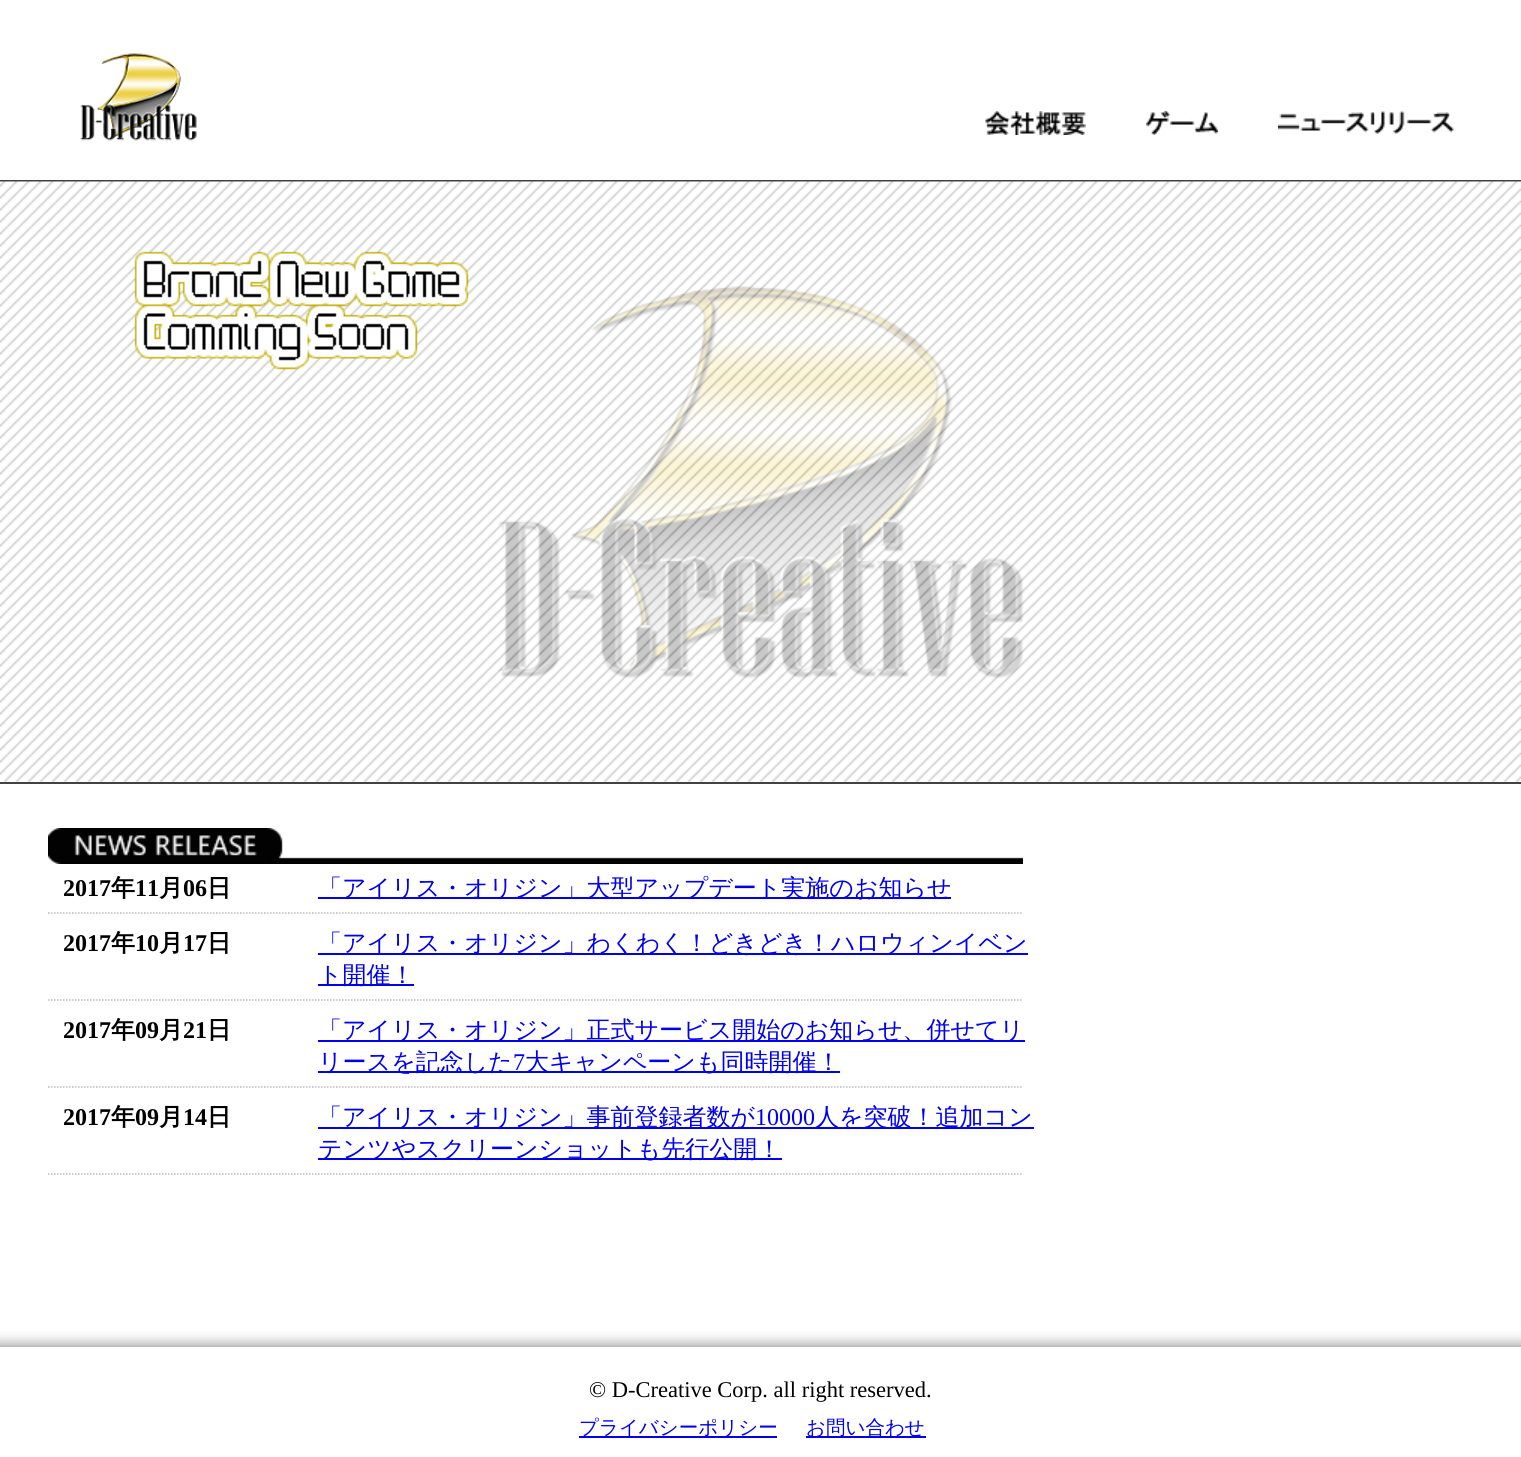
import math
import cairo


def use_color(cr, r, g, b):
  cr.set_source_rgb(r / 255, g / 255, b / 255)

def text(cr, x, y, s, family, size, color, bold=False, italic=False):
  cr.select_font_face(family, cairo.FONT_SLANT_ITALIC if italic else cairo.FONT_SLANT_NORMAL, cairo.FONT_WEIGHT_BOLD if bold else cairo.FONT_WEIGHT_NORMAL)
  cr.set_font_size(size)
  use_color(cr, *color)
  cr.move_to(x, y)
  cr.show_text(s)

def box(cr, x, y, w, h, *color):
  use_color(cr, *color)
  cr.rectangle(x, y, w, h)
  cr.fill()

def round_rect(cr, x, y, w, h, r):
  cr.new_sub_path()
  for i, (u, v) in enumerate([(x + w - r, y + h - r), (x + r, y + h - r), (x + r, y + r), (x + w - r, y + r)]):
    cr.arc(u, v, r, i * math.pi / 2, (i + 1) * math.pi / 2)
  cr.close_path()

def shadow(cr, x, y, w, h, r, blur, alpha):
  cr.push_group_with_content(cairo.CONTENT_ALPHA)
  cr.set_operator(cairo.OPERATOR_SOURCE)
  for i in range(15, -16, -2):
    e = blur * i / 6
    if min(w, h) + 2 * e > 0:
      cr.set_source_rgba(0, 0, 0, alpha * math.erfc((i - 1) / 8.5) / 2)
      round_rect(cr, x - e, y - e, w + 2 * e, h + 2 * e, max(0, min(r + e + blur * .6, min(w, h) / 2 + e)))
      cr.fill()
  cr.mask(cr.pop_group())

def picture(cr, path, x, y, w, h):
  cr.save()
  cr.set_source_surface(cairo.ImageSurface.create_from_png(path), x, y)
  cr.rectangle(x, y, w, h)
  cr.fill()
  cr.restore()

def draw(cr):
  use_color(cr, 255, 255, 255)
  cr.paint()
  box(cr, 0, 180, 1521, 2, 66, 66, 66)
  picture(cr, "img_01.png", 80, 53, 117, 88)
  picture(cr, "img_02.png", 985, 111, 101, 24)
  picture(cr, "img_03.png", 1146, 111, 72, 24)
  picture(cr, "img_04.png", 1278, 111, 176, 23)
  picture(cr, "img_05.png", 0, 181, 1521, 601)
  box(cr, 0, 782, 1521, 2, 66, 66, 66)
  picture(cr, "img_06.png", 48, 828, 975, 36)
  cr.new_path()
  cr.move_to(48, 913)
  cr.line_to(1023, 913)
  use_color(cr, 187, 187, 187)
  cr.set_line_width(1.5)
  cr.set_dash([1.5, 1.5])
  cr.stroke()
  box(cr, 318, 897, 633, 2, 0, 0, 238)
  cr.new_path()
  cr.move_to(48, 1000)
  cr.line_to(1023, 1000)
  use_color(cr, 187, 187, 187)
  cr.stroke()
  box(cr, 318, 953, 710, 2, 0, 0, 238)
  box(cr, 318, 984, 96, 2, 0, 0, 238)
  cr.new_path()
  cr.move_to(48, 1087)
  cr.line_to(1023, 1087)
  use_color(cr, 187, 187, 187)
  cr.stroke()
  box(cr, 318, 1040, 707, 2, 0, 0, 238)
  box(cr, 318, 1071, 522, 2, 0, 0, 238)
  cr.new_path()
  cr.move_to(48, 1174)
  cr.line_to(1023, 1174)
  use_color(cr, 187, 187, 187)
  cr.stroke()
  box(cr, 318, 1127, 716, 2, 0, 0, 238)
  box(cr, 318, 1158, 464, 2, 0, 0, 238)
  cr.save()
  cr.rectangle(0, 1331, 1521, 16)
  cr.clip()
  use_color(cr, 128, 128, 128)
  shadow(cr, -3, 1346, 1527, 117, 0, 7.5, 1)
  cr.restore()
  box(cr, 579, 1436, 198, 2, 0, 0, 238)
  box(cr, 806, 1436, 120, 2, 0, 0, 238)
  text(cr, 63, 896, "2017", "Liberation Serif", 24, (0, 0, 0), bold=True)
  text(cr, 111, 896, "年", "WenQuanYi Zen Hei", 24, (0, 0, 0), bold=True)
  text(cr, 135, 896, "11", "Liberation Serif", 24, (0, 0, 0), bold=True)
  text(cr, 159, 896, "月", "WenQuanYi Zen Hei", 24, (0, 0, 0), bold=True)
  text(cr, 183, 896, "06", "Liberation Serif", 24, (0, 0, 0), bold=True)
  text(cr, 207, 896, "日", "WenQuanYi Zen Hei", 24, (0, 0, 0), bold=True)
  text(cr, 318, 896, "「アイリス・オリジン」大型アップデート実施のお知らせ", "WenQuanYi Zen Hei Medium", 24, (0, 0, 238))
  text(cr, 63, 951, "2017", "Liberation Serif", 24, (0, 0, 0), bold=True)
  text(cr, 111, 951, "年", "WenQuanYi Zen Hei", 24, (0, 0, 0), bold=True)
  text(cr, 135, 951, "10", "Liberation Serif", 24, (0, 0, 0), bold=True)
  text(cr, 159, 951, "月", "WenQuanYi Zen Hei", 24, (0, 0, 0), bold=True)
  text(cr, 183, 951, "17", "Liberation Serif", 24, (0, 0, 0), bold=True)
  text(cr, 207, 951, "日", "WenQuanYi Zen Hei", 24, (0, 0, 0), bold=True)
  text(cr, 318, 951, "「アイリス・オリジン」わくわく！どきどき！ハロウィンイベン", "WenQuanYi Zen Hei Medium", 24, (0, 0, 238))
  text(cr, 318, 983, "ト開催！", "WenQuanYi Zen Hei Medium", 24, (0, 0, 238))
  text(cr, 63, 1038, "2017", "Liberation Serif", 24, (0, 0, 0), bold=True)
  text(cr, 111, 1038, "年", "WenQuanYi Zen Hei", 24, (0, 0, 0), bold=True)
  text(cr, 135, 1038, "09", "Liberation Serif", 24, (0, 0, 0), bold=True)
  text(cr, 159, 1038, "月", "WenQuanYi Zen Hei", 24, (0, 0, 0), bold=True)
  text(cr, 183, 1038, "21", "Liberation Serif", 24, (0, 0, 0), bold=True)
  text(cr, 207, 1038, "日", "WenQuanYi Zen Hei", 24, (0, 0, 0), bold=True)
  text(cr, 318, 1038, "「アイリス・オリジン」正式サービス開始のお知らせ、併せてリ", "WenQuanYi Zen Hei Medium", 24, (0, 0, 238))
  text(cr, 318, 1070, "リースを記念した", "WenQuanYi Zen Hei Medium", 24, (0, 0, 238))
  text(cr, 513, 1070, "7", "Liberation Serif", 24, (0, 0, 238))
  text(cr, 525, 1070, "大キャンペーンも同時開催！", "WenQuanYi Zen Hei Medium", 24, (0, 0, 238))
  text(cr, 63, 1125, "2017", "Liberation Serif", 24, (0, 0, 0), bold=True)
  text(cr, 111, 1125, "年", "WenQuanYi Zen Hei", 24, (0, 0, 0), bold=True)
  text(cr, 135, 1125, "09", "Liberation Serif", 24, (0, 0, 0), bold=True)
  text(cr, 159, 1125, "月", "WenQuanYi Zen Hei", 24, (0, 0, 0), bold=True)
  text(cr, 183, 1125, "14", "Liberation Serif", 24, (0, 0, 0), bold=True)
  text(cr, 207, 1125, "日", "WenQuanYi Zen Hei", 24, (0, 0, 0), bold=True)
  text(cr, 318, 1125, "「アイリス・オリジン」事前登録者数が", "WenQuanYi Zen Hei Medium", 24, (0, 0, 238))
  text(cr, 755, 1125, "10000", "Liberation Serif", 24, (0, 0, 238))
  text(cr, 815, 1125, "人を突破！追加コン", "WenQuanYi Zen Hei Medium", 24, (0, 0, 238))
  text(cr, 318, 1157, "テンツやスクリーンショットも先行公開！", "WenQuanYi Zen Hei Medium", 24, (0, 0, 238))
  text(cr, 589, 1397, "© D-Creative Corp. all right reserved.", "Liberation Serif", 22.5, (0, 0, 0))
  text(cr, 579, 1434, "プライバシーポリシー", "WenQuanYi Zen Hei Medium", 19.5, (0, 0, 238))
  text(cr, 806, 1434, "お問い合わせ", "WenQuanYi Zen Hei Medium", 19.5, (0, 0, 238))


surface = cairo.ImageSurface(cairo.FORMAT_RGB24, 1521, 1457)
cr = cairo.Context(surface)
options = cairo.FontOptions()
options.set_hint_metrics(cairo.HINT_METRICS_OFF)
options.set_hint_style(cairo.HINT_STYLE_NONE)
cr.set_font_options(options)
cr.set_miter_limit(4)
draw(cr)
surface.write_to_png("out.png")
